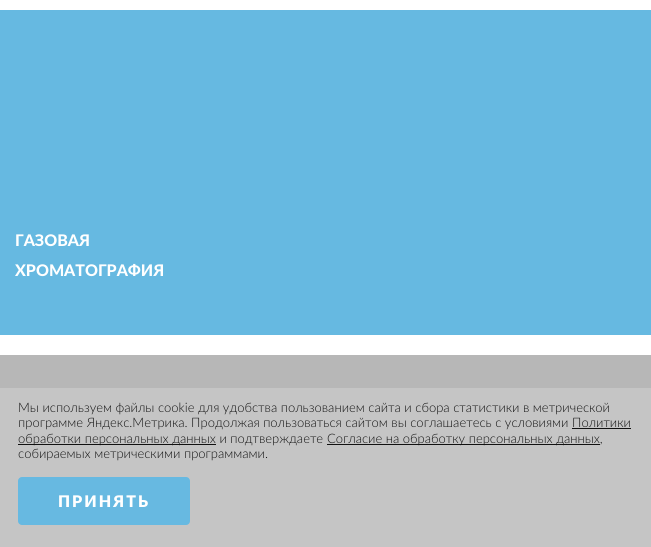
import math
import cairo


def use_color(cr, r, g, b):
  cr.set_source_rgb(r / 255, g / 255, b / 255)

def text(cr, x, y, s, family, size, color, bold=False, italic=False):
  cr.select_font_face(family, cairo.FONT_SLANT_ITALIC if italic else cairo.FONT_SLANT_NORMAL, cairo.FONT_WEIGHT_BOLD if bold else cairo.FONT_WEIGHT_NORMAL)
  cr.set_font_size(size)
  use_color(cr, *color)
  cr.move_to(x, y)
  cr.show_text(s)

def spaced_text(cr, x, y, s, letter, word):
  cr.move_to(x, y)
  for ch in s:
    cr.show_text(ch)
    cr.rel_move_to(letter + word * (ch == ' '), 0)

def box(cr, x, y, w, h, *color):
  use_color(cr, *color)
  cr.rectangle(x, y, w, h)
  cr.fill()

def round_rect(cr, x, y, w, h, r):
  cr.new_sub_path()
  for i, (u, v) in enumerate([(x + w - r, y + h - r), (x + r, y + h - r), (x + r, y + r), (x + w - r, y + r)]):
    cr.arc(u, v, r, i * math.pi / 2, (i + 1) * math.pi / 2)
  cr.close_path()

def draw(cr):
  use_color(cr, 255, 255, 255)
  cr.paint()
  box(cr, 0, 10, 651, 325, 102, 185, 225)
  box(cr, 0, 355, 651, 33, 183, 183, 183)
  box(cr, 0, 388, 651, 159, 197, 197, 197)
  box(cr, 572, 428, 59, 1, 17, 17, 17)
  box(cr, 18, 444, 198, 1, 17, 17, 17)
  box(cr, 327, 444, 273, 1, 17, 17, 17)
  use_color(cr, 103, 185, 225)
  round_rect(cr, 18, 477, 172, 48, 4)
  cr.fill()
  text(cr, 15, 246, "ГАЗОВАЯ", "Lato Black", 16, (255, 255, 255))
  text(cr, 15, 276, "ХРОМАТОГРАФИЯ", "Lato Black", 16, (255, 255, 255))
  text(cr, 18, 412, "Мы используем файлы cookie для удобства пользованием сайта и сбора статистики в метрической", "Lato Light", 13, (17, 17, 17))
  text(cr, 18, 427, "программе Яндекс.Метрика. Продолжая пользоваться сайтом вы соглашаетесь с условиями Политики", "Lato Light", 13, (17, 17, 17))
  text(cr, 18, 443, "обработки персональных данных и подтверждаете", "Lato Light", 13, (17, 17, 17))
  text(cr, 327, 443, "Согласие на обработку персональных данных,", "Lato Light", 13, (17, 17, 17))
  text(cr, 18, 458, "собираемых метрическими программами.", "Lato Light", 13, (17, 17, 17))
  cr.select_font_face("Lato ExtraBold")
  cr.set_font_size(16)
  use_color(cr, 255, 255, 255)
  spaced_text(cr, 58, 507, "ПРИНЯТЬ", 2, 0)


surface = cairo.ImageSurface(cairo.FORMAT_RGB24, 651, 547)
cr = cairo.Context(surface)
options = cairo.FontOptions()
options.set_hint_metrics(cairo.HINT_METRICS_OFF)
options.set_hint_style(cairo.HINT_STYLE_NONE)
cr.set_font_options(options)
cr.set_miter_limit(4)
draw(cr)
surface.write_to_png("out.png")
